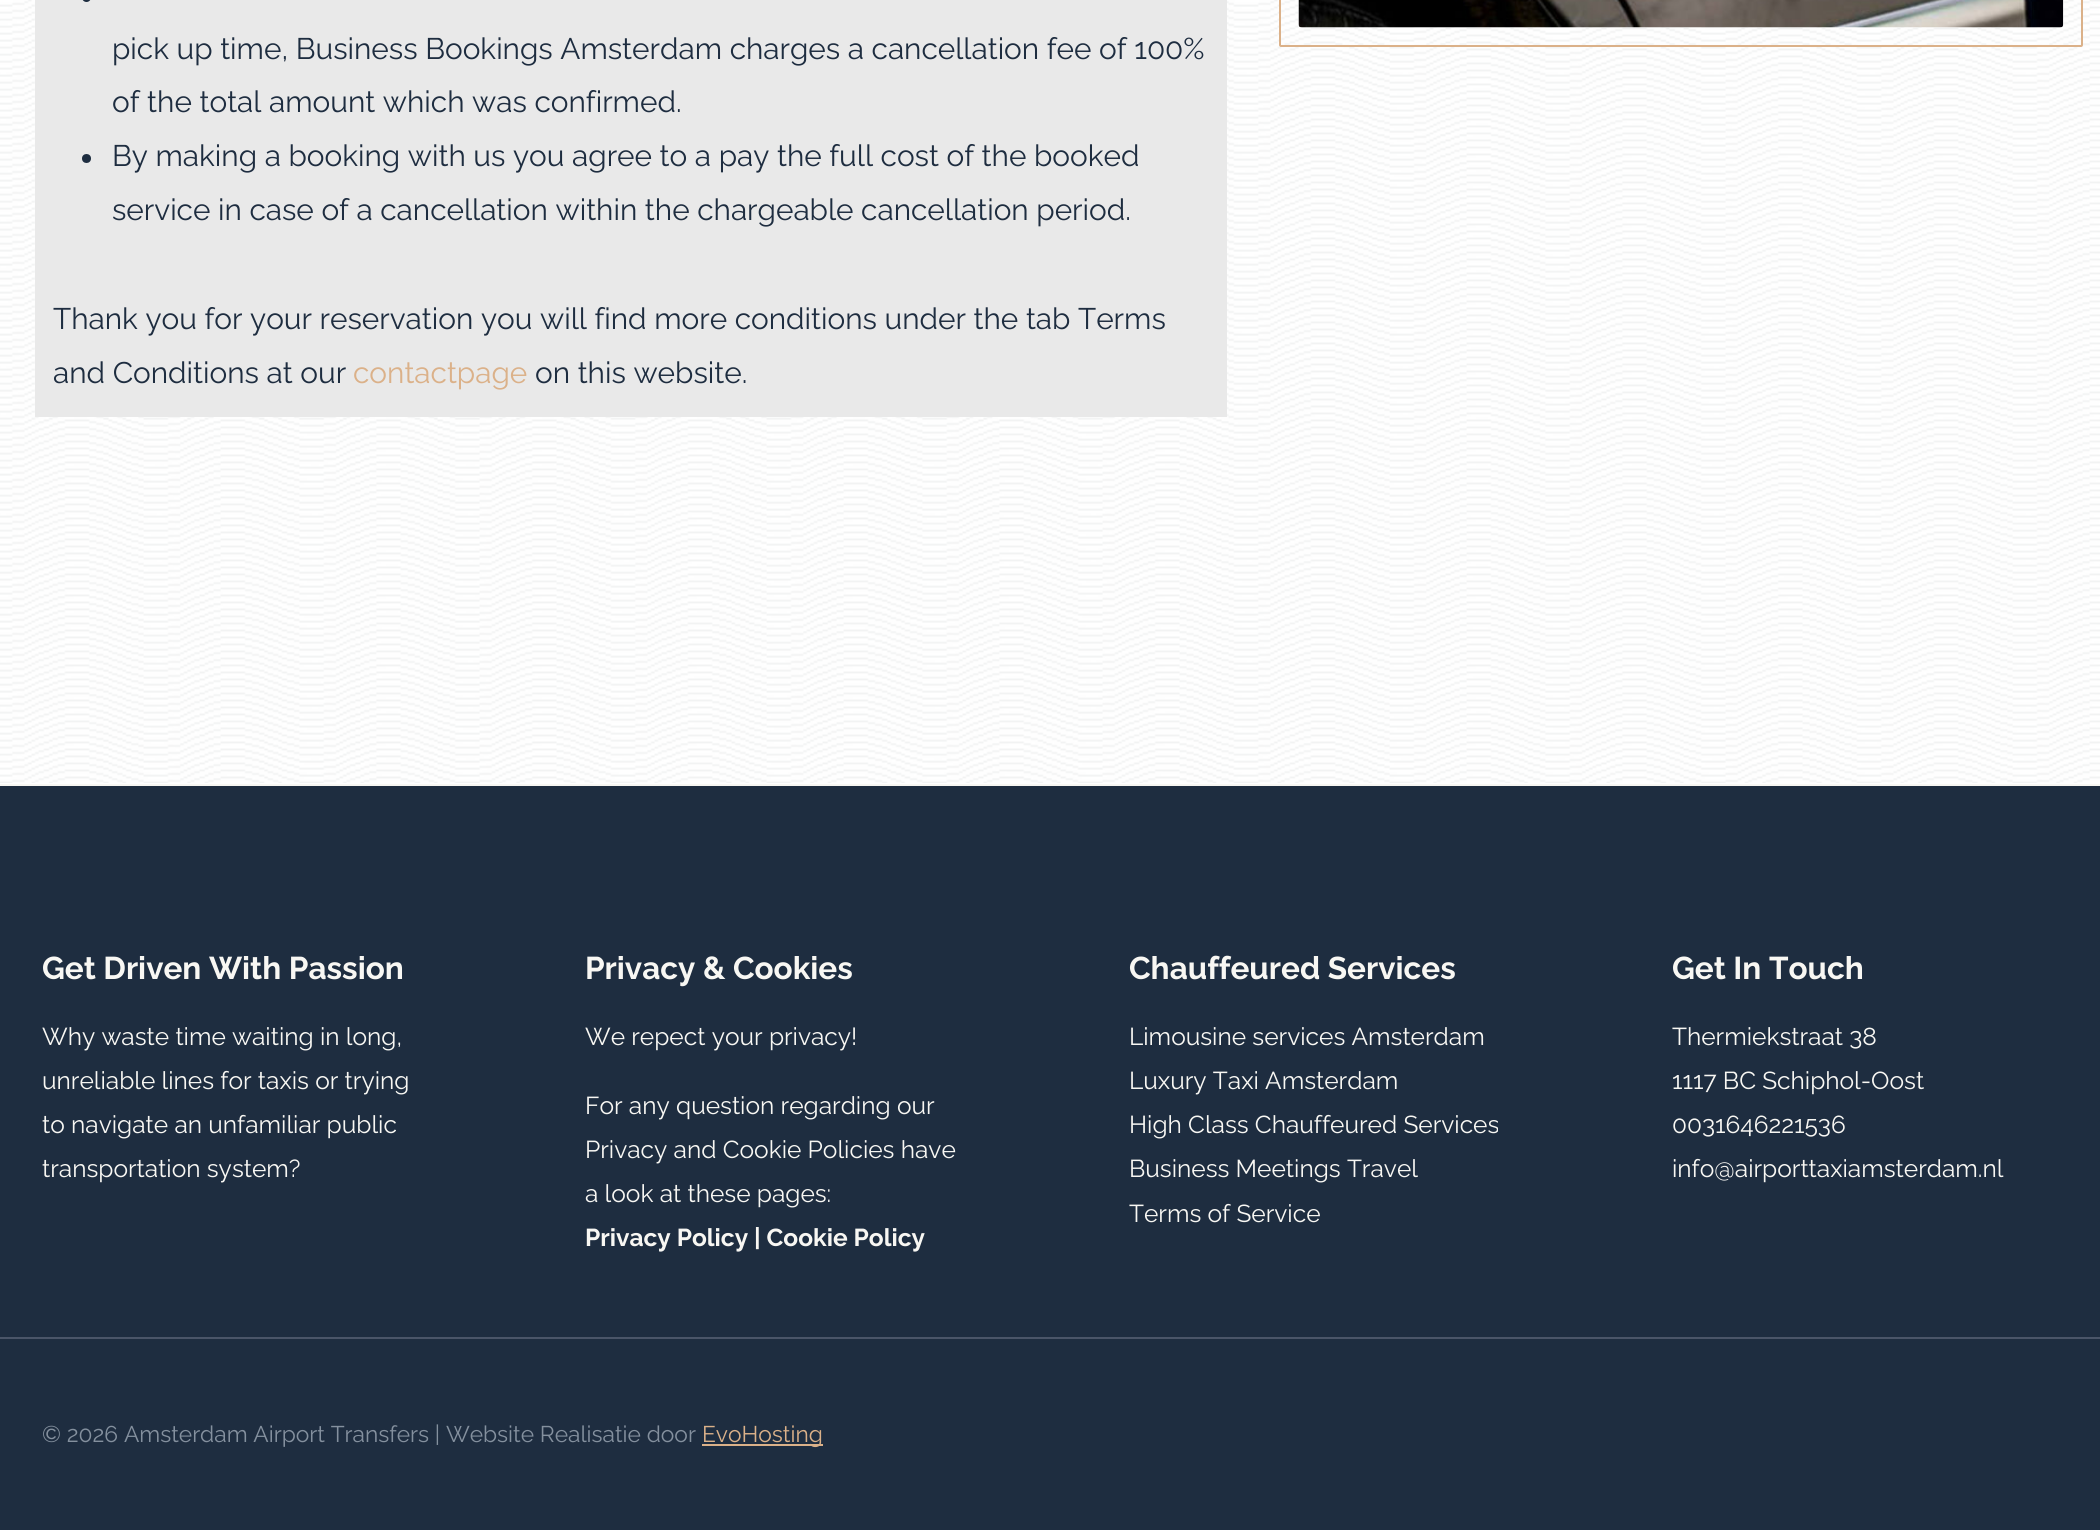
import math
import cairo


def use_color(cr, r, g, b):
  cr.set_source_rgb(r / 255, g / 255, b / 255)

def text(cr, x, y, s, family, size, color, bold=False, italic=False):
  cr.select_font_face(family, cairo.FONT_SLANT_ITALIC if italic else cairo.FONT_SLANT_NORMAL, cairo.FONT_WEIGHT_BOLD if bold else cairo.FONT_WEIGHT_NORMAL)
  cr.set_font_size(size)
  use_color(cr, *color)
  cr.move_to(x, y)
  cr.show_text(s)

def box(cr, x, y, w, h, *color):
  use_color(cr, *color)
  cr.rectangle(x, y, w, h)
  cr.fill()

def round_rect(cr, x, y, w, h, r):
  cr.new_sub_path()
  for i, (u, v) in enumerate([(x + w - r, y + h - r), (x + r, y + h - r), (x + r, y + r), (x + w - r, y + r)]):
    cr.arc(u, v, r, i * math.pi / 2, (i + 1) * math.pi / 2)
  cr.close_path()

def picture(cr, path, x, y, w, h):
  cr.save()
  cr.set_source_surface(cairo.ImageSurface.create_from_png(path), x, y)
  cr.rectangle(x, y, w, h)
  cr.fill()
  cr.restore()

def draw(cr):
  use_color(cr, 255, 255, 255)
  cr.paint()
  picture(cr, "img_01.png", 0, 0, 2100, 783)
  round_rect(cr, 1280, -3, 802, 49, 1)
  use_color(cr, 219, 177, 137)
  cr.stroke()
  picture(cr, "img_02.png", 1298, 0, 766, 28)
  box(cr, 35, 0, 1192, 417, 233, 233, 233)
  use_color(cr, 30, 45, 64)
  round_rect(cr, 82, -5, 9, 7, 4.5)
  cr.fill()
  cr.arc(86.5, 158.5, 4.5, 0, 2 * math.pi)
  cr.fill()
  box(cr, 0, 784, 2100, 2, 248, 247, 243)
  box(cr, 0, 786, 2100, 744, 30, 45, 64)
  box(cr, 0, 1337, 2100, 2, 74, 85, 104)
  box(cr, 702, 1444, 121, 2, 219, 177, 137)
  text(cr, 112, 59, "pick up time, Business Bookings Amsterdam charges a cancellation fee of 100%", "Raleway", 29.75, (30, 45, 64))
  text(cr, 112, 112, "of the total amount which was confirmed.", "Raleway", 29.75, (30, 45, 64))
  text(cr, 112, 166, "By making a booking with us you agree to a pay the full cost of the booked", "Raleway", 29.75, (30, 45, 64))
  text(cr, 112, 220, "service in case of a cancellation within the chargeable cancellation period.", "Raleway", 29.75, (30, 45, 64))
  text(cr, 53, 329, "Thank you for your reservation you will find more conditions under the tab Terms", "Raleway", 29.75, (30, 45, 64))
  text(cr, 53, 383, "and Conditions at our", "Raleway", 29.75, (30, 45, 64))
  text(cr, 353, 383, "contactpage", "Raleway", 29.75, (219, 177, 137))
  text(cr, 535, 383, "on this website.", "Raleway", 29.75, (30, 45, 64))
  text(cr, 42, 979, "Get Driven With Passion", "Raleway", 31.5, (248, 247, 243), bold=True)
  text(cr, 42, 1045, "Why waste time waiting in long,", "Raleway", 24.5, (248, 247, 243))
  text(cr, 42, 1089, "unreliable lines for taxis or trying", "Raleway", 24.5, (248, 247, 243))
  text(cr, 42, 1133, "to navigate an unfamiliar public", "Raleway", 24.5, (248, 247, 243))
  text(cr, 42, 1177, "transportation system?", "Raleway", 24.5, (248, 247, 243))
  text(cr, 585, 979, "Privacy & Cookies", "Raleway", 31.5, (248, 247, 243), bold=True)
  text(cr, 585, 1045, "We repect your privacy!", "Raleway", 24.5, (248, 247, 243))
  text(cr, 585, 1114, "For any question regarding our", "Raleway", 24.5, (248, 247, 243))
  text(cr, 585, 1158, "Privacy and Cookie Policies have", "Raleway", 24.5, (248, 247, 243))
  text(cr, 585, 1202, "a look at these pages:", "Raleway", 24.5, (248, 247, 243))
  text(cr, 585, 1246, "Privacy Policy | Cookie Policy", "Raleway", 24.5, (248, 247, 243), bold=True)
  text(cr, 1129, 979, "Chauffeured Services", "Raleway", 31.5, (248, 247, 243), bold=True)
  text(cr, 1129, 1045, "Limousine services Amsterdam", "Raleway", 24.5, (248, 247, 243))
  text(cr, 1129, 1089, "Luxury Taxi Amsterdam", "Raleway", 24.5, (248, 247, 243))
  text(cr, 1129, 1133, "High Class Chauffeured Services", "Raleway", 24.5, (248, 247, 243))
  text(cr, 1129, 1177, "Business Meetings Travel", "Raleway", 24.5, (248, 247, 243))
  text(cr, 1129, 1222, "Terms of Service", "Raleway", 24.5, (248, 247, 243))
  text(cr, 1672, 979, "Get In Touch", "Raleway", 31.5, (248, 247, 243), bold=True)
  text(cr, 1672, 1045, "Thermiekstraat 38", "Raleway", 24.5, (248, 247, 243))
  text(cr, 1672, 1089, "1117 BC Schiphol-Oost", "Raleway", 24.5, (248, 247, 243))
  text(cr, 1672, 1133, "0031646221536", "Raleway", 24.5, (248, 247, 243))
  text(cr, 1672, 1177, "info@airporttaxiamsterdam.nl", "Raleway", 24.5, (248, 247, 243))
  text(cr, 42, 1442, "© 2026 Amsterdam Airport Transfers | Website Realisatie door", "Raleway", 22.75, (132, 144, 158))
  text(cr, 702, 1442, "EvoHosting", "Raleway", 22.75, (219, 177, 137))


surface = cairo.ImageSurface(cairo.FORMAT_RGB24, 2100, 1530)
cr = cairo.Context(surface)
options = cairo.FontOptions()
options.set_hint_metrics(cairo.HINT_METRICS_OFF)
options.set_hint_style(cairo.HINT_STYLE_NONE)
cr.set_font_options(options)
cr.set_miter_limit(4)
draw(cr)
surface.write_to_png("out.png")
